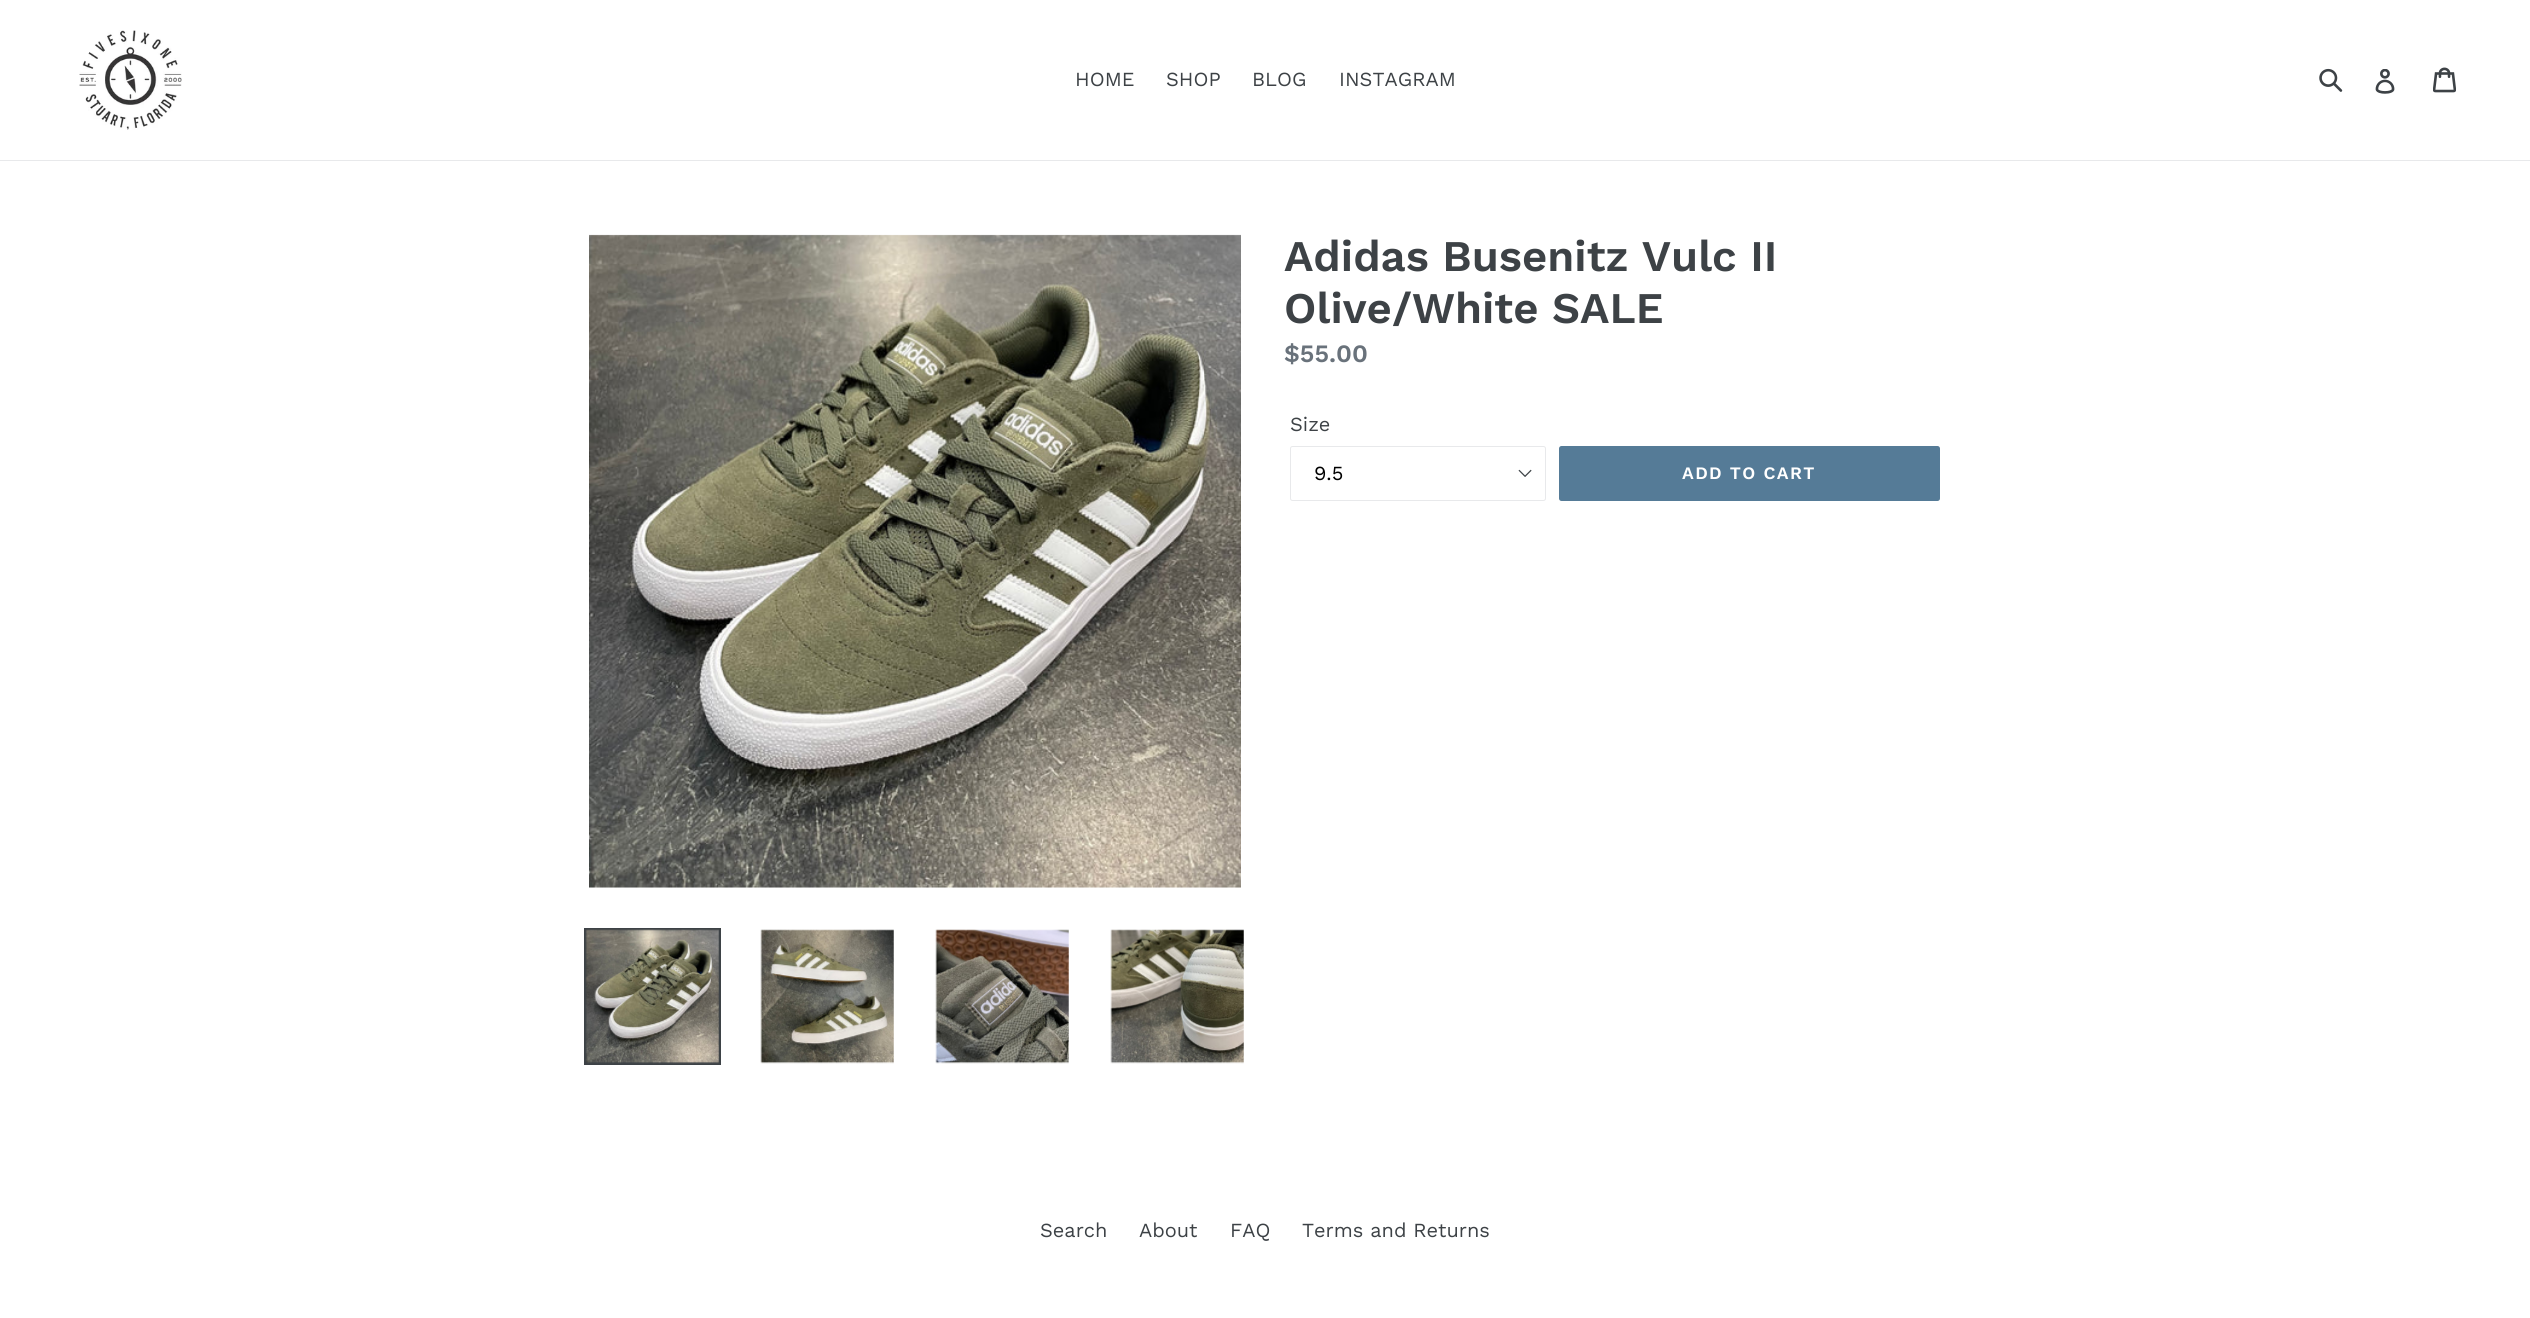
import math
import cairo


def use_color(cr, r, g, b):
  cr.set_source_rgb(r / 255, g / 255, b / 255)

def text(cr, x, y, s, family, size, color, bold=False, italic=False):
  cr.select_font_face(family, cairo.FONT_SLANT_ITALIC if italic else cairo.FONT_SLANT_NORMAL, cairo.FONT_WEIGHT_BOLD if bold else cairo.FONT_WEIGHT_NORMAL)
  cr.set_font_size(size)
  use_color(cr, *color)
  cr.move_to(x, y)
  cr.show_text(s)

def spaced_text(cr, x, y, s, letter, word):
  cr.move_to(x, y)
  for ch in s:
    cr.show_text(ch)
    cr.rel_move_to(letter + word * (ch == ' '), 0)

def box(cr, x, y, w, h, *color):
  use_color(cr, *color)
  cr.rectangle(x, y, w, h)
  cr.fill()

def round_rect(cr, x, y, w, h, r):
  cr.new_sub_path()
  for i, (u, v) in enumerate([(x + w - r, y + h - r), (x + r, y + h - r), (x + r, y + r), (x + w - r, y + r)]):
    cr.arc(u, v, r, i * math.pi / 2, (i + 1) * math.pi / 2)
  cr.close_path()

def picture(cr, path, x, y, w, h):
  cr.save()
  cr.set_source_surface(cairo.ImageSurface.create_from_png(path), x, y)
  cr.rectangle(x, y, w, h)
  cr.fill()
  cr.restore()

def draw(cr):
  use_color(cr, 255, 255, 255)
  cr.paint()
  box(cr, 0, 160, 2530, 1, 232, 233, 235)
  picture(cr, "img_01.png", 79, 30, 103, 100)
  picture(cr, "img_02.png", 2319, 68, 24, 24)
  picture(cr, "img_03.png", 2375, 69, 20, 25)
  picture(cr, "img_04.png", 2433, 67, 23, 26)
  picture(cr, "img_05.png", 589, 234, 652, 654)
  cr.rectangle(585.5, 929.5, 134, 134)
  use_color(cr, 61, 66, 70)
  cr.set_line_width(3)
  cr.stroke()
  picture(cr, "img_06.png", 585, 929, 134, 135)
  picture(cr, "img_07.png", 760, 929, 134, 135)
  picture(cr, "img_08.png", 935, 929, 134, 135)
  picture(cr, "img_09.png", 1110, 929, 134, 135)
  picture(cr, "img_10.png", 1518, 469, 14, 8)
  round_rect(cr, 1290.5, 446.5, 255, 54, 2)
  use_color(cr, 232, 233, 235)
  cr.set_line_width(1)
  cr.stroke()
  use_color(cr, 85, 123, 151)
  round_rect(cr, 1559, 446, 381, 55, 2.5)
  cr.fill()
  text(cr, 1075, 86, "HOME", "Work Sans", 20, (61, 66, 70))
  text(cr, 1166, 86, "SHOP", "Work Sans", 20, (61, 66, 70))
  text(cr, 1252, 86, "BLOG", "Work Sans", 20, (61, 66, 70))
  text(cr, 1339, 86, "INSTAGRAM", "Work Sans", 20, (61, 66, 70))
  text(cr, 1284, 271, "Adidas Busenitz Vulc II", "Work Sans SemiBold", 43.75, (61, 66, 70))
  text(cr, 1284, 323, "Olive/White SALE", "Work Sans SemiBold", 43.75, (61, 66, 70))
  text(cr, 1284, 362, "$55.00", "Work Sans SemiBold", 25, (105, 114, 123))
  text(cr, 1290, 431, "Size", "Work Sans", 20, (61, 66, 70))
  text(cr, 1314, 480, "9.5", "Work Sans", 20, (0, 0, 0))
  cr.select_font_face("Work Sans SemiBold")
  cr.set_font_size(17.5)
  use_color(cr, 255, 255, 255)
  spaced_text(cr, 1682, 479, "ADD TO CART", 1.4, 0)
  text(cr, 1040, 1237, "Search", "Work Sans", 20, (61, 66, 70))
  text(cr, 1139, 1237, "About", "Work Sans", 20, (61, 66, 70))
  text(cr, 1230, 1237, "FAQ", "Work Sans", 20, (61, 66, 70))
  text(cr, 1302, 1237, "Terms and Returns", "Work Sans", 20, (61, 66, 70))


surface = cairo.ImageSurface(cairo.FORMAT_RGB24, 2530, 1318)
cr = cairo.Context(surface)
options = cairo.FontOptions()
options.set_hint_metrics(cairo.HINT_METRICS_OFF)
options.set_hint_style(cairo.HINT_STYLE_NONE)
cr.set_font_options(options)
cr.set_miter_limit(4)
draw(cr)
surface.write_to_png("out.png")
